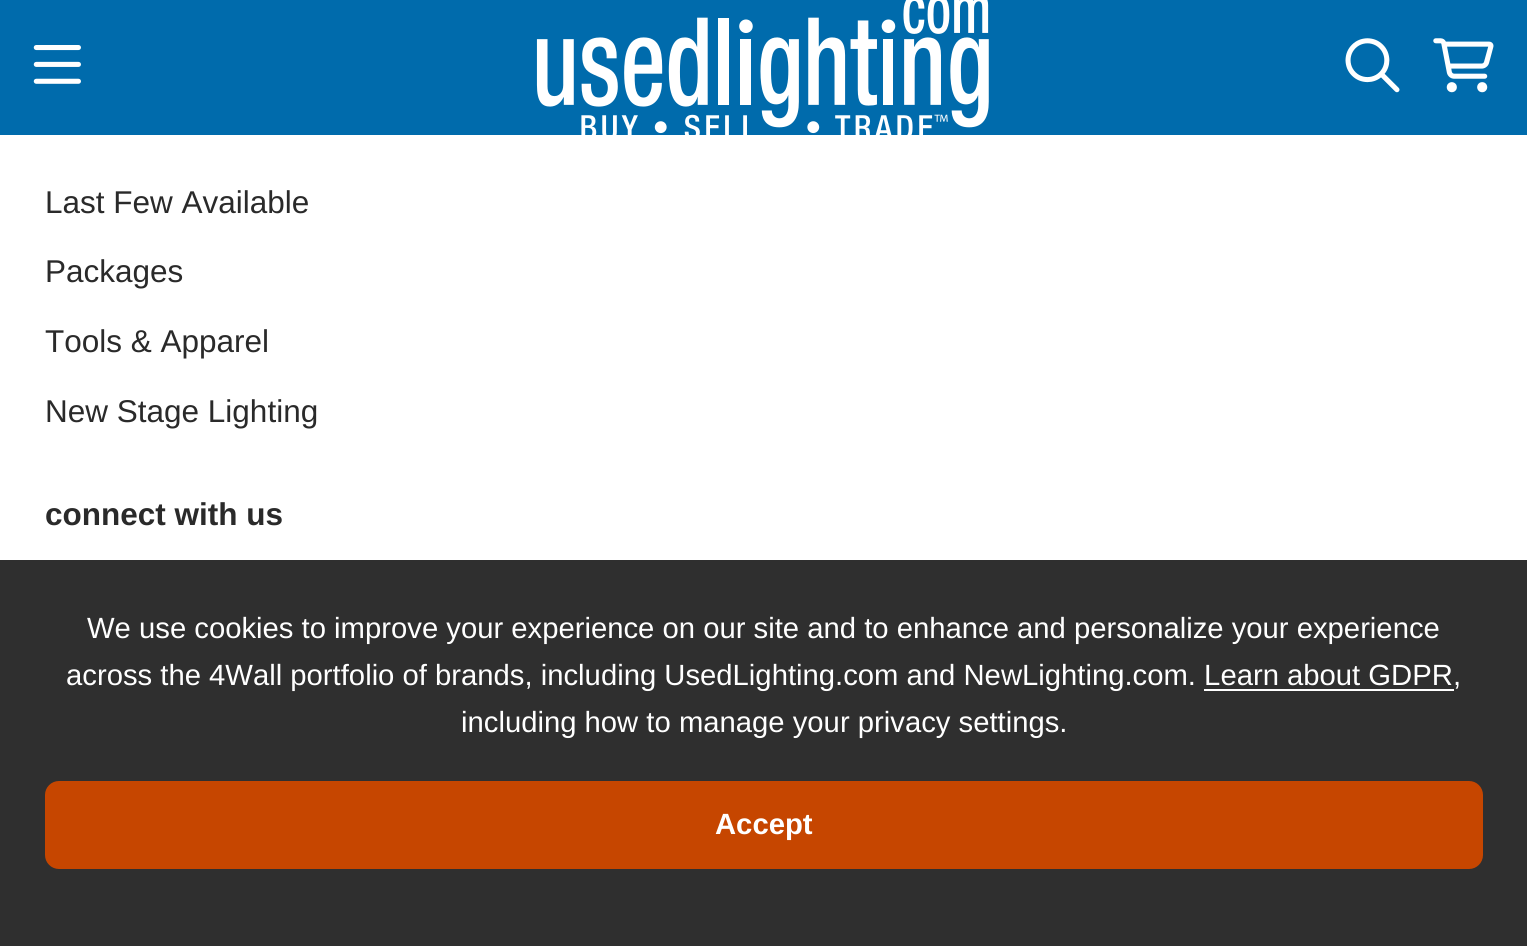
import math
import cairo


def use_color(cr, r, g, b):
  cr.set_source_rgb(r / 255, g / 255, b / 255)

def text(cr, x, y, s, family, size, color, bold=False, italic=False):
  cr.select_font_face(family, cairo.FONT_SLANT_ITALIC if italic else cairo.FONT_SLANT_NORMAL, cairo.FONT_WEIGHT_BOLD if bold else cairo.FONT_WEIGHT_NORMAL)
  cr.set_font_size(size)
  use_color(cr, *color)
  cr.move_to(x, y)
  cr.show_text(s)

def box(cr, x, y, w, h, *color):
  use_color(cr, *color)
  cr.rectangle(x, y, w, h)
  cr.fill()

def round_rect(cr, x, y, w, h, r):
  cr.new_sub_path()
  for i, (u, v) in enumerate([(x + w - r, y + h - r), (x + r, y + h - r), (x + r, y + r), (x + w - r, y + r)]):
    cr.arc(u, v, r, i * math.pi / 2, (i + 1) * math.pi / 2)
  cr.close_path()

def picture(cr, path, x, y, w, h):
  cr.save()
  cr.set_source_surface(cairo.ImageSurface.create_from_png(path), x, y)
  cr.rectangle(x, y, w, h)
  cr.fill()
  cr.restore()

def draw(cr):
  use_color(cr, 255, 255, 255)
  cr.paint()
  box(cr, 0, 0, 1527, 135, 0, 107, 172)
  picture(cr, "img_01.png", 33, 45, 48, 39)
  picture(cr, "img_02.png", 536, 0, 453, 135)
  picture(cr, "img_03.png", 1345, 38, 55, 55)
  picture(cr, "img_04.png", 1433, 38, 61, 55)
  box(cr, 0, 560, 1527, 386, 47, 47, 47)
  box(cr, 1204, 689, 250, 2, 255, 255, 255)
  use_color(cr, 198, 70, 0)
  round_rect(cr, 45, 781, 1438, 88, 14)
  cr.fill()
  text(cr, 45, 213, "Last Few Available", "Liberation Sans", 31.5, (42, 42, 42))
  text(cr, 45, 282, "Packages", "Liberation Sans", 31.5, (42, 42, 42))
  text(cr, 45, 352, "Tools & Apparel", "Liberation Sans", 31.5, (42, 42, 42))
  text(cr, 45, 422, "New Stage Lighting", "Liberation Sans", 31.5, (42, 42, 42))
  text(cr, 45, 525, "connect with us", "Liberation Sans", 31.5, (42, 42, 42), bold=True)
  text(cr, 87, 638, "We use cookies to improve your experience on our site and to enhance and personalize your experience", "Liberation Sans", 29.25, (255, 255, 255))
  text(cr, 66, 685, "across the 4Wall portfolio of brands, including UsedLighting.com and NewLighting.com. Learn about GDPR,", "Liberation Sans", 29.25, (255, 255, 255))
  text(cr, 461, 732, "including how to manage your privacy settings.", "Liberation Sans", 29.25, (255, 255, 255))
  text(cr, 715, 834, "Accept", "Liberation Sans", 29.25, (255, 255, 255), bold=True)


surface = cairo.ImageSurface(cairo.FORMAT_RGB24, 1527, 946)
cr = cairo.Context(surface)
options = cairo.FontOptions()
options.set_hint_metrics(cairo.HINT_METRICS_OFF)
options.set_hint_style(cairo.HINT_STYLE_NONE)
cr.set_font_options(options)
cr.set_miter_limit(4)
draw(cr)
surface.write_to_png("out.png")
